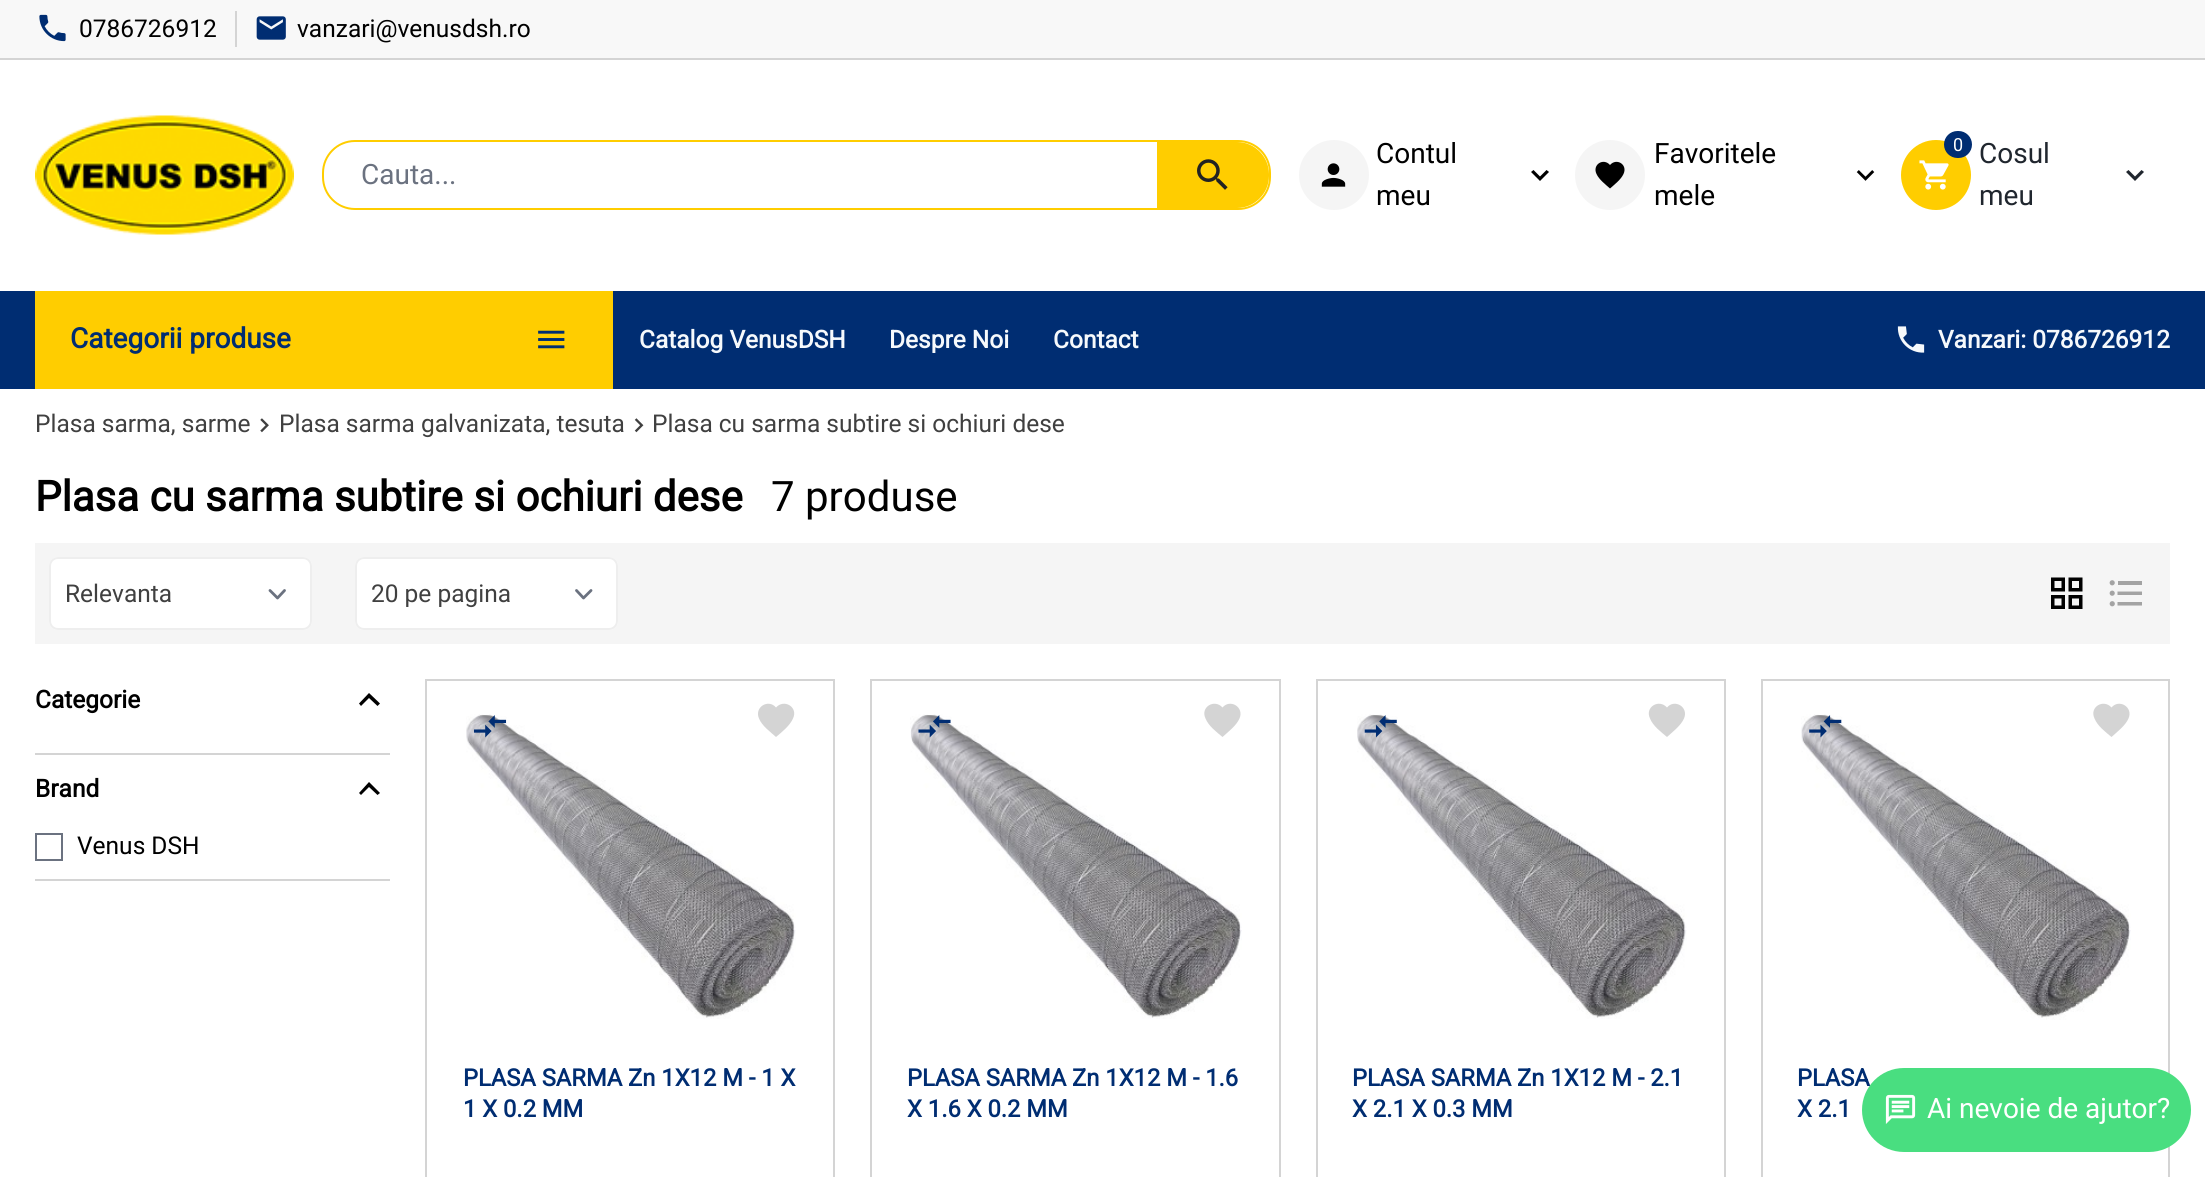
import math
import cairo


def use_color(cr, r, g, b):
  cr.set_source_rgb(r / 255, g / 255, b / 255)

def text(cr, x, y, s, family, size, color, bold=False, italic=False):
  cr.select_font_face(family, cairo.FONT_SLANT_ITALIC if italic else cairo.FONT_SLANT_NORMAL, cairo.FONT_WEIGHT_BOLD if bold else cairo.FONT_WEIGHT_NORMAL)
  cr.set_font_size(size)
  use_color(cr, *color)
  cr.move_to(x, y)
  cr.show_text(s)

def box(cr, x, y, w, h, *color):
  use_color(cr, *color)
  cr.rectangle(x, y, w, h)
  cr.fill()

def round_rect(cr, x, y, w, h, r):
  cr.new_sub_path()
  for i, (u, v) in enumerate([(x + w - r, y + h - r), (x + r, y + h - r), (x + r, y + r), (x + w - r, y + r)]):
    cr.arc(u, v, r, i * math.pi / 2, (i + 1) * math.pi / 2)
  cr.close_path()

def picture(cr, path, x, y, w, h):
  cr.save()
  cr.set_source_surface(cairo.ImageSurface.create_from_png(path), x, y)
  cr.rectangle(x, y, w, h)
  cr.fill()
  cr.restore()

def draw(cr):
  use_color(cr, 255, 255, 255)
  cr.paint()
  box(cr, 0, 0, 2205, 58, 248, 248, 248)
  box(cr, 0, 58, 2205, 2, 212, 212, 212)
  box(cr, 235, 11, 2, 36, 212, 212, 212)
  picture(cr, "img_01.png", 39, 14, 27, 28)
  picture(cr, "img_02.png", 256, 16, 30, 24)
  picture(cr, "img_03.png", 35, 115, 259, 120)
  round_rect(cr, 323, 141, 947, 68, 32)
  use_color(cr, 255, 205, 0)
  cr.stroke()
  cr.save()
  round_rect(cr, 324, 142, 945, 66, 32)
  cr.clip()
  box(cr, 334, 145, 786, 60, 255, 255, 255)
  cr.restore()
  cr.new_path()
  cr.move_to(1157, 142)
  cr.line_to(1237, 142)
  cr.curve_to(1254.5, 142, 1269, 156.5, 1269, 174)
  cr.line_to(1269, 176)
  cr.curve_to(1269, 193.5, 1254.5, 208, 1237, 208)
  cr.line_to(1157, 208)
  cr.close_path()
  cr.fill()
  picture(cr, "img_04.png", 1197, 159, 31, 31)
  use_color(cr, 245, 245, 245)
  cr.arc(1334, 175, 35, 0, 2 * math.pi)
  cr.fill()
  picture(cr, "img_05.png", 1321, 163, 25, 24)
  use_color(cr, 0, 0, 0)
  cr.new_path()
  cr.move_to(1546.5, 170)
  cr.line_to(1540, 176.5)
  cr.line_to(1533.5, 170)
  cr.line_to(1531, 172)
  cr.line_to(1540, 181)
  cr.line_to(1549, 172)
  cr.close_path()
  cr.fill()
  use_color(cr, 245, 245, 245)
  cr.arc(1610, 175, 35, 0, 2 * math.pi)
  cr.fill()
  use_color(cr, 0, 0, 0)
  cr.new_path()
  cr.move_to(1610, 188.5)
  cr.curve_to(1605.5, 184.5, 1599, 179.5, 1596.5, 174)
  cr.curve_to(1592, 164.5, 1603.5, 157.5, 1610, 165)
  cr.curve_to(1616.5, 157.5, 1628, 164.5, 1623.5, 174)
  cr.curve_to(1621, 179.5, 1614.5, 184.5, 1610, 188.5)
  cr.close_path()
  cr.fill()
  picture(cr, "img_06.png", 1856, 170, 19, 11)
  use_color(cr, 255, 205, 0)
  cr.arc(1936, 175, 35, 0, 2 * math.pi)
  cr.fill()
  use_color(cr, 0, 45, 114)
  round_rect(cr, 1944, 131, 28, 27, 13.5)
  cr.fill()
  picture(cr, "img_07.png", 1919, 160, 30, 30)
  use_color(cr, 32, 38, 46)
  cr.new_path()
  cr.move_to(2141.5, 170)
  cr.line_to(2135, 176.5)
  cr.line_to(2128.5, 170)
  cr.line_to(2126, 172)
  cr.line_to(2135, 181)
  cr.line_to(2144, 172)
  cr.close_path()
  cr.fill()
  box(cr, 0, 291, 2205, 98, 0, 45, 114)
  box(cr, 35, 291, 578, 98, 255, 205, 0)
  picture(cr, "img_08.png", 538, 330, 27, 19)
  picture(cr, "img_09.png", 1897, 326, 28, 27)
  picture(cr, "img_10.png", 260, 418, 9, 15)
  picture(cr, "img_11.png", 634, 418, 10, 15)
  box(cr, 35, 543, 2135, 101, 245, 245, 245)
  use_color(cr, 255, 255, 255)
  round_rect(cr, 49, 557, 263, 73, 9)
  cr.fill()
  cr.new_path()
  cr.move_to(270, 590.5)
  cr.line_to(277.5, 598)
  cr.line_to(284.5, 590.5)
  use_color(cr, 107, 114, 128)
  cr.set_line_width(2.8)
  cr.set_line_cap(cairo.LINE_CAP_ROUND)
  cr.set_line_join(cairo.LINE_JOIN_ROUND)
  cr.stroke()
  round_rect(cr, 50, 558, 261, 71, 8)
  use_color(cr, 238, 238, 238)
  cr.set_line_width(2)
  cr.set_line_cap(cairo.LINE_CAP_BUTT)
  cr.set_line_join(cairo.LINE_JOIN_MITER)
  cr.stroke()
  use_color(cr, 255, 255, 255)
  round_rect(cr, 355, 557, 263, 73, 9)
  cr.fill()
  cr.new_path()
  cr.move_to(576.5, 590.5)
  cr.line_to(583.5, 598)
  cr.line_to(591, 590.5)
  use_color(cr, 107, 114, 128)
  cr.set_line_width(2.8)
  cr.set_line_cap(cairo.LINE_CAP_ROUND)
  cr.set_line_join(cairo.LINE_JOIN_ROUND)
  cr.stroke()
  round_rect(cr, 356, 558, 261, 71, 8)
  use_color(cr, 238, 238, 238)
  cr.set_line_width(2)
  cr.set_line_cap(cairo.LINE_CAP_BUTT)
  cr.set_line_join(cairo.LINE_JOIN_MITER)
  cr.stroke()
  picture(cr, "img_12.png", 2051, 577, 32, 32)
  picture(cr, "img_13.png", 2109, 580, 33, 27)
  box(cr, 35, 753, 355, 2, 212, 212, 212)
  use_color(cr, 0, 0, 0)
  cr.new_path()
  cr.move_to(369, 693)
  cr.line_to(359, 703.5)
  cr.line_to(361, 706)
  cr.line_to(369, 698)
  cr.line_to(377.5, 706)
  cr.line_to(380, 703.5)
  cr.close_path()
  cr.fill()
  box(cr, 35, 879, 355, 2, 212, 212, 212)
  use_color(cr, 0, 0, 0)
  cr.new_path()
  cr.move_to(369, 782)
  cr.line_to(359, 793)
  cr.line_to(361, 795)
  cr.line_to(369, 787)
  cr.line_to(377.5, 795)
  cr.line_to(380, 793)
  cr.close_path()
  cr.fill()
  cr.rectangle(36, 834, 26, 26)
  use_color(cr, 107, 114, 128)
  cr.stroke()
  cr.rectangle(426, 680, 408, 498)
  use_color(cr, 212, 212, 212)
  cr.stroke()
  picture(cr, "img_14.png", 466, 714, 330, 305)
  cr.new_path()
  cr.move_to(776, 737)
  cr.curve_to(770.5, 732, 762, 726, 759, 718.5)
  cr.curve_to(754, 707, 768.5, 698.5, 776, 707.5)
  cr.curve_to(784, 698.5, 798.5, 707, 793, 718.5)
  cr.curve_to(790, 725.5, 782, 732, 776, 737)
  cr.close_path()
  cr.fill()
  picture(cr, "img_15.png", 473, 715, 34, 23)
  cr.rectangle(871, 680, 409, 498)
  cr.stroke()
  picture(cr, "img_16.png", 910, 714, 332, 305)
  cr.new_path()
  cr.move_to(1222.5, 737)
  cr.curve_to(1216.5, 732, 1208.5, 726, 1205.5, 718.5)
  cr.curve_to(1200, 707, 1214.5, 698.5, 1222.5, 707.5)
  cr.curve_to(1230, 698.5, 1244.5, 707, 1239.5, 718.5)
  cr.curve_to(1236.5, 725.5, 1228, 732, 1222.5, 737)
  cr.close_path()
  cr.fill()
  picture(cr, "img_17.png", 918, 715, 33, 23)
  cr.rectangle(1317, 680, 408, 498)
  cr.stroke()
  picture(cr, "img_18.png", 1357, 714, 330, 305)
  cr.new_path()
  cr.move_to(1667, 737)
  cr.curve_to(1661, 732, 1653, 726, 1650, 718.5)
  cr.curve_to(1644.5, 707, 1659, 698.5, 1667, 707.5)
  cr.curve_to(1674.5, 698.5, 1689, 707, 1684, 718.5)
  cr.curve_to(1681, 725.5, 1672.5, 732, 1667, 737)
  cr.close_path()
  cr.fill()
  picture(cr, "img_19.png", 1364, 715, 33, 23)
  cr.rectangle(1762, 680, 407, 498)
  cr.stroke()
  picture(cr, "img_20.png", 1801, 714, 330, 306)
  cr.new_path()
  cr.move_to(2111.5, 737)
  cr.curve_to(2105.5, 732, 2097.5, 726, 2094.5, 718.5)
  cr.curve_to(2089, 707, 2103.5, 698.5, 2111.5, 707.5)
  cr.curve_to(2119, 698.5, 2133.5, 707, 2128.5, 718.5)
  cr.curve_to(2125.5, 725.5, 2117, 732, 2111.5, 737)
  cr.close_path()
  cr.fill()
  picture(cr, "img_21.png", 1809, 715, 33, 23)
  text(cr, 79, 37, "0786726912", "Roboto", 24.5, (0, 0, 0))
  text(cr, 297, 37, "vanzari@venusdsh.ro", "Roboto", 24.5, (0, 0, 0))
  text(cr, 361, 184, "Cauta...", "Roboto", 28, (107, 114, 128))
  text(cr, 1376, 163, "Contul", "Roboto", 28, (0, 0, 0))
  text(cr, 1376, 205, "meu", "Roboto", 28, (0, 0, 0))
  text(cr, 1654, 163, "Favoritele", "Roboto", 28, (0, 0, 0))
  text(cr, 1654, 205, "mele", "Roboto", 28, (0, 0, 0))
  text(cr, 1953, 151, "0", "Roboto", 18, (255, 255, 255))
  text(cr, 1979, 163, "Cosul", "Roboto", 28, (32, 38, 46))
  text(cr, 1979, 205, "meu", "Roboto", 28, (32, 38, 46))
  text(cr, 70, 348, "Categorii produse", "Roboto", 28, (0, 45, 114), bold=True)
  text(cr, 639, 348, "Catalog VenusDSH", "Roboto", 24.5, (246, 249, 252), bold=True)
  text(cr, 889, 348, "Despre Noi", "Roboto", 24.5, (246, 249, 252), bold=True)
  text(cr, 1053, 348, "Contact", "Roboto", 24.5, (246, 249, 252), bold=True)
  text(cr, 1938, 348, "Vanzari: 0786726912", "Roboto", 24.5, (246, 249, 252), bold=True)
  text(cr, 35, 432, "Plasa sarma, sarme", "Roboto", 24.5, (64, 64, 64))
  text(cr, 279, 432, "Plasa sarma galvanizata, tesuta", "Roboto", 24.5, (64, 64, 64))
  text(cr, 652, 432, "Plasa cu sarma subtire si ochiuri dese", "Roboto", 24.5, (64, 64, 64))
  text(cr, 35, 511, "Plasa cu sarma subtire si ochiuri dese", "Roboto", 42, (0, 0, 0), bold=True)
  text(cr, 771, 511, "7 produse", "Roboto", 42, (0, 0, 0))
  text(cr, 65, 602, "Relevanta", "Roboto", 24.5, (64, 64, 64))
  text(cr, 371, 602, "20 pe pagina", "Roboto", 24.5, (64, 64, 64))
  text(cr, 35, 708, "Categorie", "Roboto", 24.5, (0, 0, 0), bold=True)
  text(cr, 35, 797, "Brand", "Roboto", 24.5, (0, 0, 0), bold=True)
  text(cr, 77, 854, "Venus DSH", "Roboto", 24.5, (0, 0, 0))
  text(cr, 463, 1086, "PLASA SARMA Zn 1X12 M - 1 X", "Roboto", 23.75, (0, 45, 114), bold=True)
  text(cr, 463, 1117, "1 X 0.2 MM", "Roboto", 23.75, (0, 45, 114), bold=True)
  text(cr, 907, 1086, "PLASA SARMA Zn 1X12 M - 1.6", "Roboto", 23.75, (0, 45, 114), bold=True)
  text(cr, 907, 1117, "X 1.6 X 0.2 MM", "Roboto", 23.75, (0, 45, 114), bold=True)
  text(cr, 1352, 1086, "PLASA SARMA Zn 1X12 M - 2.1", "Roboto", 23.75, (0, 45, 114), bold=True)
  text(cr, 1352, 1117, "X 2.1 X 0.3 MM", "Roboto", 23.75, (0, 45, 114), bold=True)
  text(cr, 1797, 1086, "PLASA", "Roboto", 23.75, (0, 45, 114), bold=True)
  text(cr, 1797, 1117, "X 2.1", "Roboto", 23.75, (0, 45, 114), bold=True)
  use_color(cr, 73, 222, 128)
  round_rect(cr, 1862, 1068, 329, 84, 42)
  cr.fill()
  picture(cr, "img_22.png", 1885, 1094, 31, 30)
  text(cr, 1927, 1118, "Ai nevoie de ajutor?", "Roboto", 28, (255, 255, 255))


surface = cairo.ImageSurface(cairo.FORMAT_RGB24, 2205, 1177)
cr = cairo.Context(surface)
options = cairo.FontOptions()
options.set_hint_metrics(cairo.HINT_METRICS_OFF)
options.set_hint_style(cairo.HINT_STYLE_NONE)
cr.set_font_options(options)
cr.set_miter_limit(4)
draw(cr)
surface.write_to_png("out.png")
